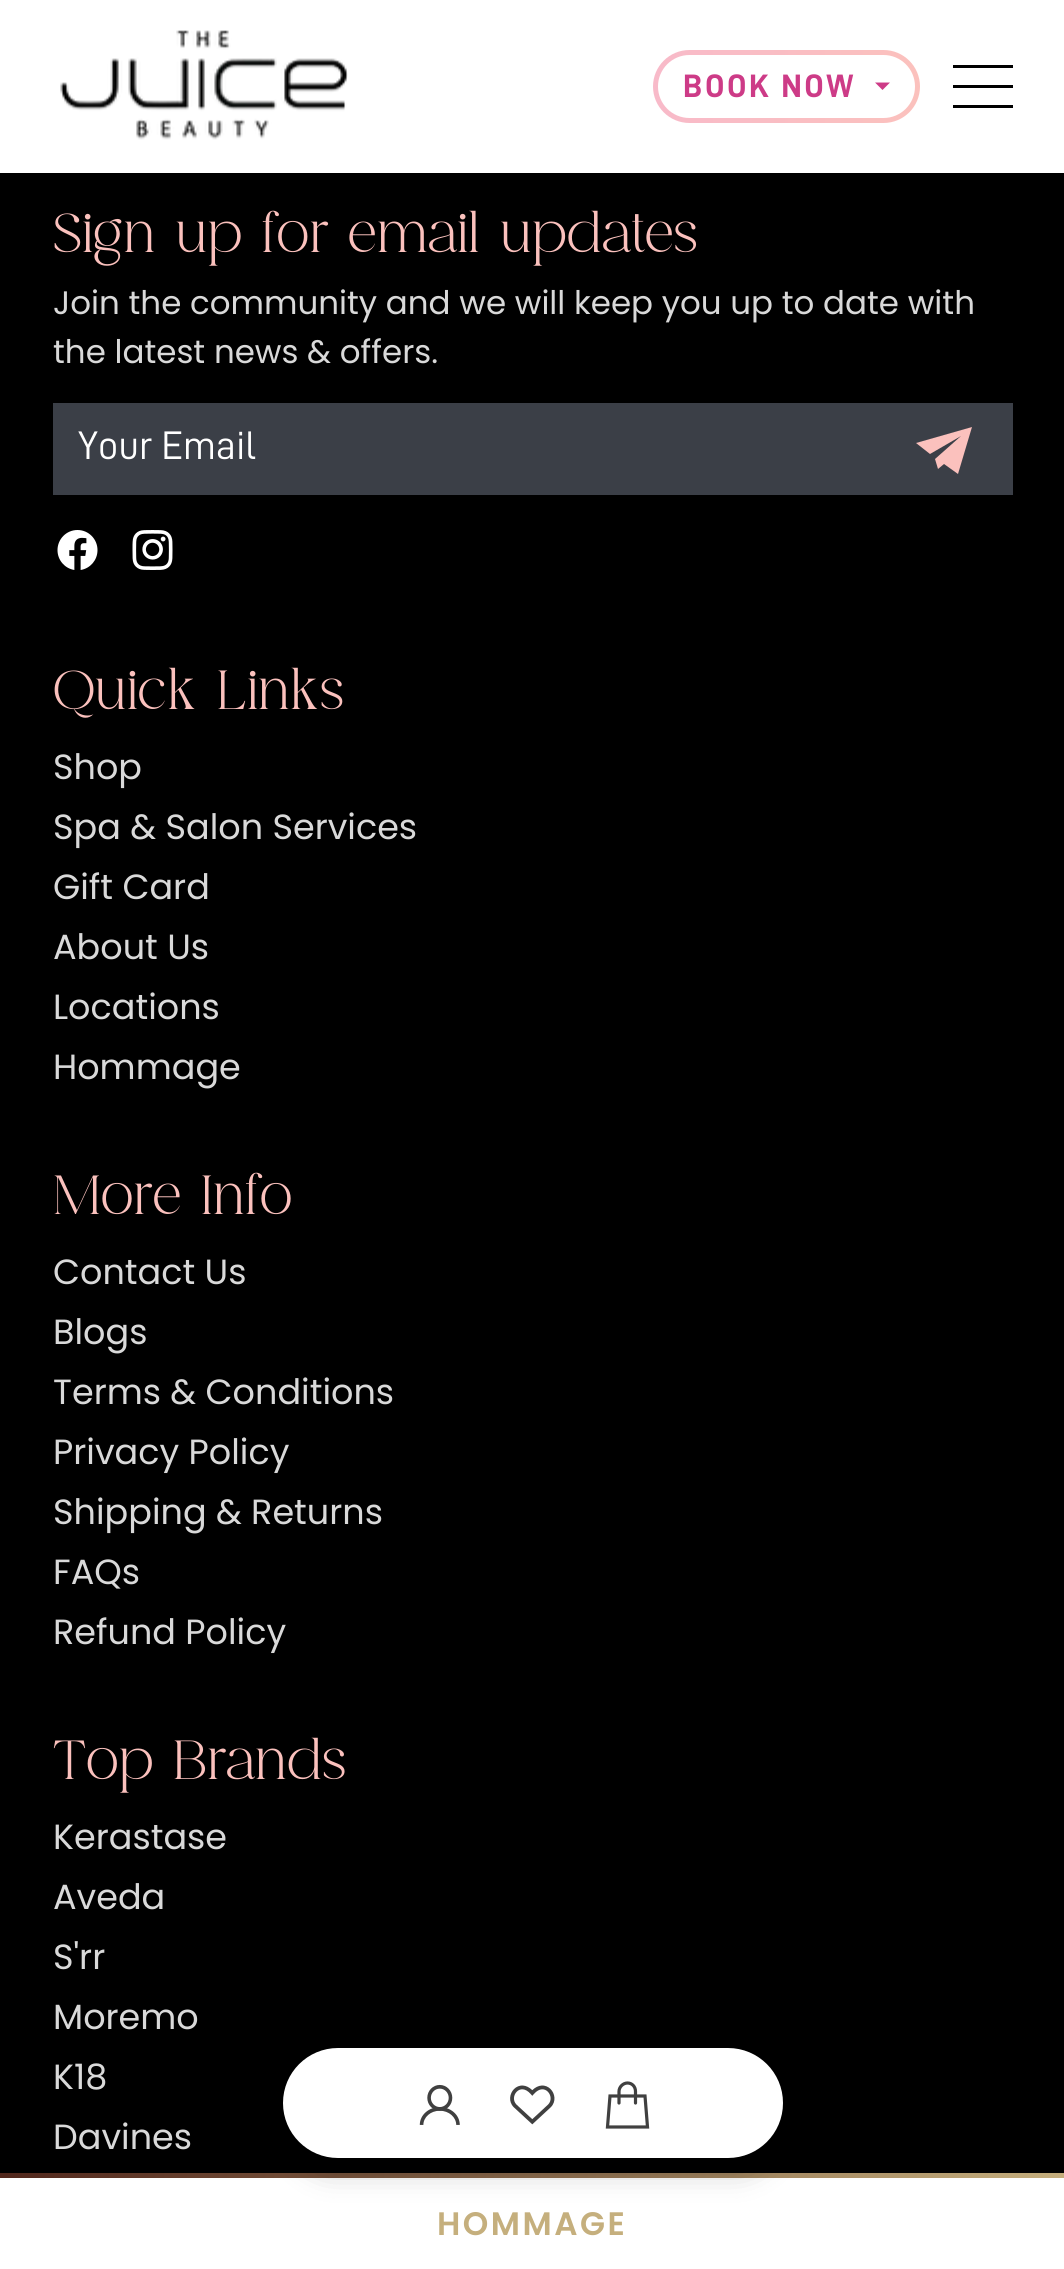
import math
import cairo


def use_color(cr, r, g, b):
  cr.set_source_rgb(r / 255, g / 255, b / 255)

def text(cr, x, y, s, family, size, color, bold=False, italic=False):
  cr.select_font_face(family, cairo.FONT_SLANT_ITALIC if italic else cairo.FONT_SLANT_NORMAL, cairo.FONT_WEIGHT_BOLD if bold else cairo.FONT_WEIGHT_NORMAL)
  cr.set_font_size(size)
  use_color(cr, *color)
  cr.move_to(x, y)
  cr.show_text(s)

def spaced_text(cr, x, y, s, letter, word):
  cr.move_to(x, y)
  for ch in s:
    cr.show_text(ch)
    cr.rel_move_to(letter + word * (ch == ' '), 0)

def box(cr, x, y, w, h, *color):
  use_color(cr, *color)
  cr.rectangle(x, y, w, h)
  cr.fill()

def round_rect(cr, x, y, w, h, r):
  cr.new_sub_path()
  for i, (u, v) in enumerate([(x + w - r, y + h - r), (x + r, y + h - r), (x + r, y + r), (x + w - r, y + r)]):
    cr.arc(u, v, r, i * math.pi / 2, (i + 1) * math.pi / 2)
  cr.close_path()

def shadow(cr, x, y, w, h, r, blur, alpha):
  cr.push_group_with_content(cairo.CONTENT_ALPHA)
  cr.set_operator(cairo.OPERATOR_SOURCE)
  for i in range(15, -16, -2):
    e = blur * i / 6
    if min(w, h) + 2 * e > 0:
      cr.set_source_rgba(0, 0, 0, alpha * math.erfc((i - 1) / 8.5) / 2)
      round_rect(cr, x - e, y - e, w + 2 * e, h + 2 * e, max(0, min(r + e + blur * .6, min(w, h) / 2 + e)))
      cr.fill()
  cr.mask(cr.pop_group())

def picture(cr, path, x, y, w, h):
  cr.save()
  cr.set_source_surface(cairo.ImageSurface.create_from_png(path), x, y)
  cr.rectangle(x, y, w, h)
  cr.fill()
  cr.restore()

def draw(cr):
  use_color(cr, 0, 0, 0)
  cr.paint()
  box(cr, 0, 0, 1064, 173, 255, 255, 255)
  picture(cr, "img_01.png", 60, 30, 288, 110)
  gradient = cairo.LinearGradient(920, 86, 653, 86)
  gradient.add_color_stop_rgba(0, 0.984, 0.757, 0.741, 1)
  gradient.add_color_stop_rgba(1, 0.973, 0.729, 0.788, 1)
  cr.set_source(gradient)
  round_rect(cr, 653, 50, 267, 73, 36.5)
  cr.fill()
  use_color(cr, 255, 255, 255)
  round_rect(cr, 658, 55, 257, 63, 31.5)
  cr.fill()
  use_color(cr, 205, 59, 135)
  cr.new_path()
  cr.move_to(875, 82.5)
  cr.line_to(890, 82.5)
  cr.line_to(882.5, 90)
  cr.close_path()
  cr.fill()
  box(cr, 953, 105, 60, 3, 0, 0, 0)
  box(cr, 953, 65, 60, 3, 0, 0, 0)
  box(cr, 953, 85, 60, 3, 0, 0, 0)
  box(cr, 0, 2178, 1064, 91, 255, 255, 255)
  gradient = cairo.LinearGradient(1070, 2224, -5, 2224)
  gradient.add_color_stop_rgba(0, 0.773, 0.686, 0.49, 1)
  gradient.add_color_stop_rgba(1, 0.314, 0.149, 0.106, 1)
  cr.set_source(gradient)
  cr.rectangle(0, 2173, 1064, 5)
  cr.fill()
  use_color(cr, 0, 0, 0)
  shadow(cr, 290, 2073, 490, 100, 50, 14, 0.2)
  use_color(cr, 255, 255, 255)
  round_rect(cr, 283, 2048, 500, 110, 55)
  cr.fill()
  picture(cr, "img_02.png", 419, 2084, 41, 41)
  picture(cr, "img_03.png", 510, 2085, 45, 40)
  cr.new_path()
  cr.move_to(610, 2096)
  cr.line_to(645, 2096)
  cr.line_to(647.5, 2127)
  cr.line_to(607.5, 2127)
  cr.close_path()
  use_color(cr, 64, 64, 64)
  cr.set_line_width(3.2)
  cr.stroke()
  cr.new_path()
  cr.move_to(619, 2103)
  cr.line_to(619, 2091.5)
  cr.curve_to(619, 2087, 623, 2083, 627.5, 2083)
  cr.curve_to(632, 2083, 635.5, 2086.5, 635.5, 2091.5)
  cr.line_to(635.5, 2103)
  cr.set_line_cap(cairo.LINE_CAP_ROUND)
  cr.stroke()
  box(cr, 53, 403, 960, 92, 59, 63, 71)
  use_color(cr, 251, 193, 189)
  cr.set_fill_rule(cairo.FILL_RULE_EVEN_ODD)
  cr.new_path()
  cr.move_to(958, 474)
  cr.line_to(944, 464)
  cr.line_to(938, 469)
  cr.line_to(935, 459)
  cr.line_to(961, 436)
  cr.line_to(930, 454)
  cr.line_to(916, 443)
  cr.line_to(972, 427)
  cr.close_path()
  cr.fill()
  picture(cr, "img_04.png", 57, 530, 41, 40)
  picture(cr, "img_05.png", 132, 530, 41, 40)
  cr.select_font_face("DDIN", cairo.FONT_SLANT_NORMAL, cairo.FONT_WEIGHT_BOLD)
  cr.set_font_size(32.5)
  use_color(cr, 205, 59, 135)
  spaced_text(cr, 683, 97, "BOOK NOW", 2.5, 0)
  cr.select_font_face("Poppins SemiBold")
  use_color(cr, 197, 175, 125)
  spaced_text(cr, 437, 2235, "HOMMAGE", 2.5, 0)
  text(cr, 53, 252, "Sign up for email updates", "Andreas", 55, (251, 193, 189))
  text(cr, 53, 314, "Join the community and we will keep you up to date with", "Poppins", 32.5, (217, 217, 217))
  text(cr, 53, 363, "the latest news & offers.", "Poppins", 32.5, (217, 217, 217))
  text(cr, 78, 459, "Your Email", "DDIN", 40, (255, 255, 255))
  text(cr, 53, 709, "Quick Links", "Andreas", 55, (251, 193, 189))
  text(cr, 53, 779, "Shop", "Poppins", 35, (217, 217, 217))
  text(cr, 53, 839, "Spa & Salon Services", "Poppins", 35, (217, 217, 217))
  text(cr, 53, 899, "Gift Card", "Poppins", 35, (217, 217, 217))
  text(cr, 53, 959, "About Us", "Poppins", 35, (217, 217, 217))
  text(cr, 53, 1019, "Locations", "Poppins", 35, (217, 217, 217))
  text(cr, 53, 1079, "Hommage", "Poppins", 35, (217, 217, 217))
  text(cr, 53, 1214, "More Info", "Andreas", 55, (251, 193, 189))
  text(cr, 53, 1284, "Contact Us", "Poppins", 35, (217, 217, 217))
  text(cr, 53, 1344, "Blogs", "Poppins", 35, (217, 217, 217))
  text(cr, 53, 1404, "Terms & Conditions", "Poppins", 35, (217, 217, 217))
  text(cr, 53, 1464, "Privacy Policy", "Poppins", 35, (217, 217, 217))
  text(cr, 53, 1524, "Shipping & Returns", "Poppins", 35, (217, 217, 217))
  text(cr, 53, 1584, "FAQs", "Poppins", 35, (217, 217, 217))
  text(cr, 53, 1644, "Refund Policy", "Poppins", 35, (217, 217, 217))
  text(cr, 53, 1779, "Top Brands", "Andreas", 55, (251, 193, 189))
  text(cr, 53, 1849, "Kerastase", "Poppins", 35, (217, 217, 217))
  text(cr, 53, 1909, "Aveda", "Poppins", 35, (217, 217, 217))
  text(cr, 53, 1969, "S'rr", "Poppins", 35, (217, 217, 217))
  text(cr, 53, 2029, "Moremo", "Poppins", 35, (217, 217, 217))
  text(cr, 53, 2089, "K18", "Poppins", 35, (217, 217, 217))
  text(cr, 53, 2149, "Davines", "Poppins", 35, (217, 217, 217))


surface = cairo.ImageSurface(cairo.FORMAT_RGB24, 1064, 2269)
cr = cairo.Context(surface)
options = cairo.FontOptions()
options.set_hint_metrics(cairo.HINT_METRICS_OFF)
options.set_hint_style(cairo.HINT_STYLE_NONE)
cr.set_font_options(options)
cr.set_miter_limit(4)
draw(cr)
surface.write_to_png("out.png")
